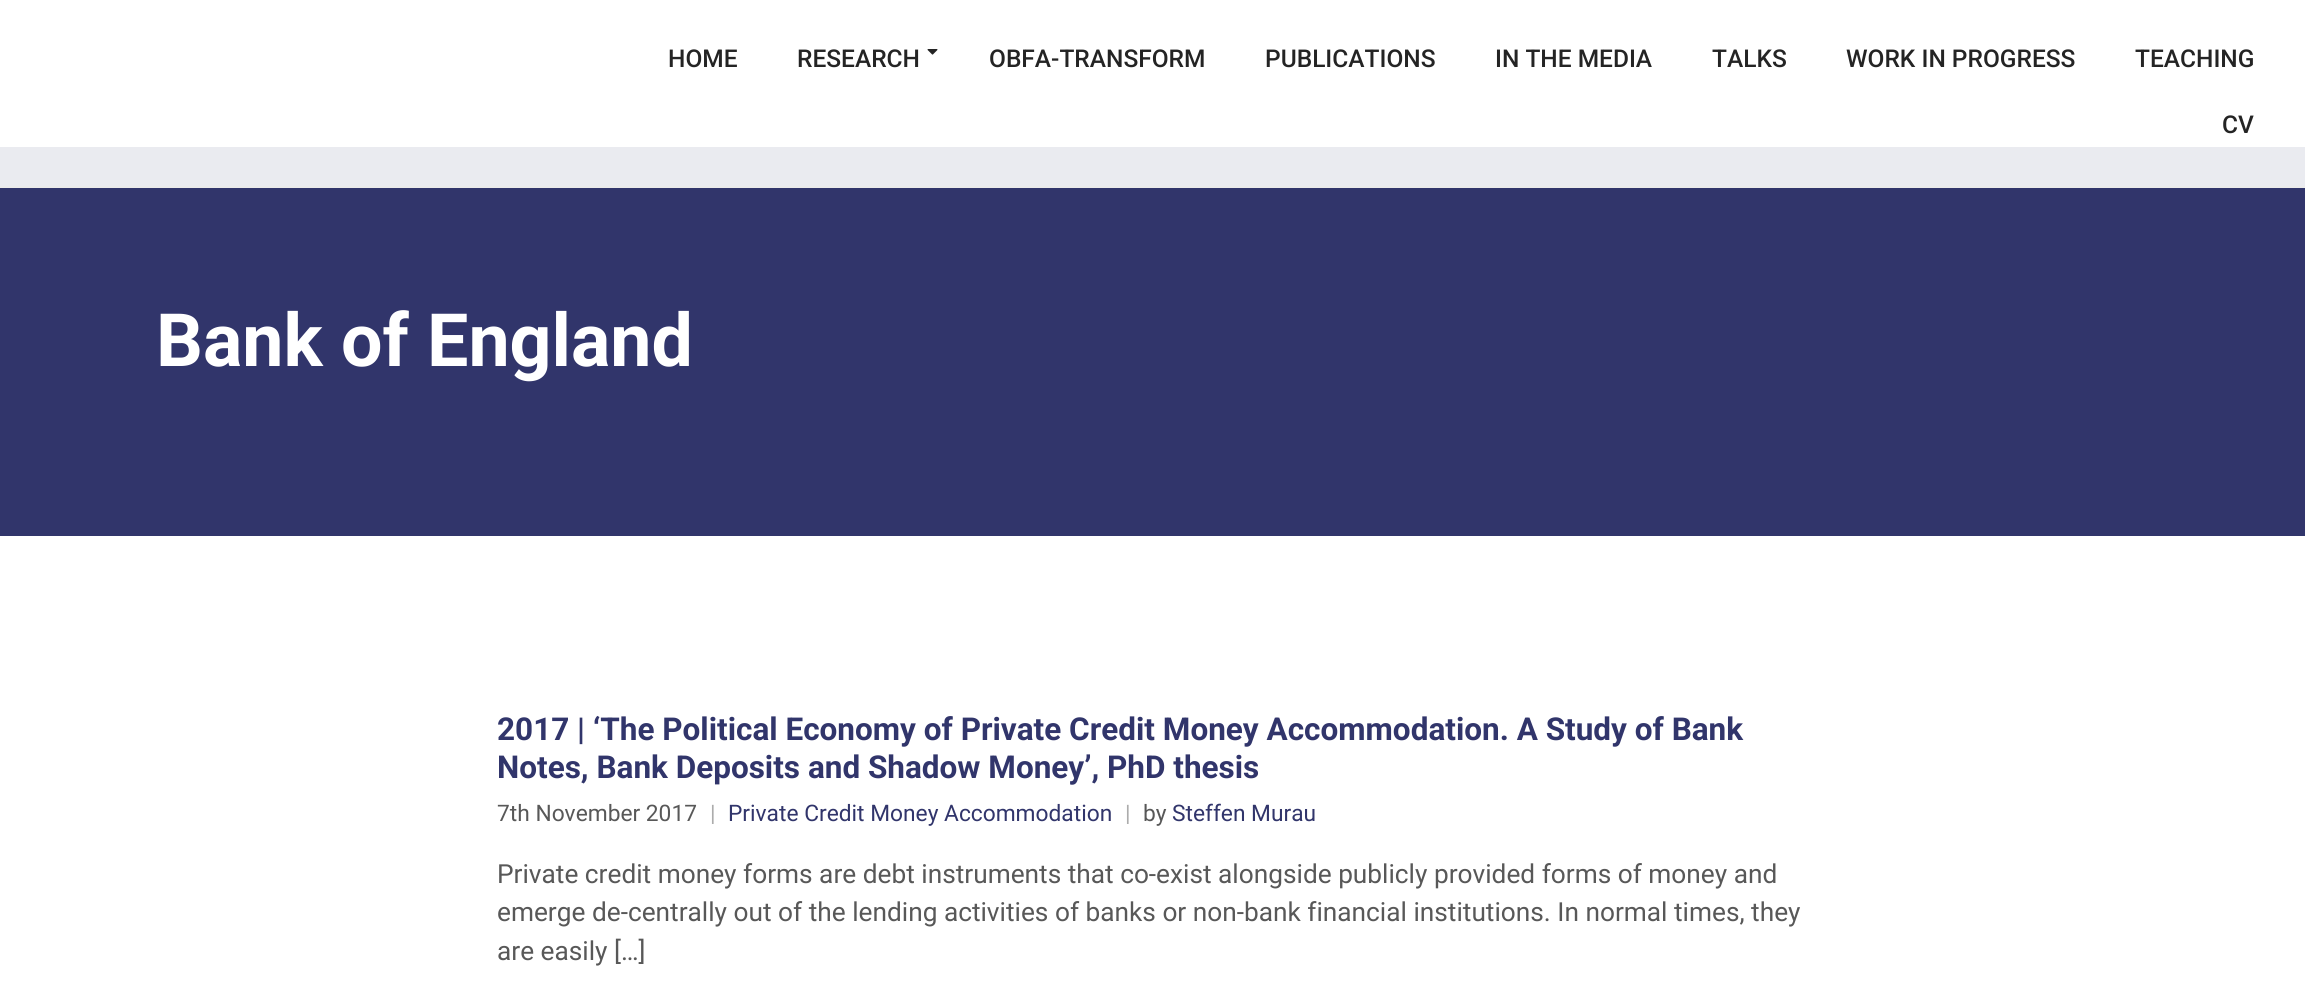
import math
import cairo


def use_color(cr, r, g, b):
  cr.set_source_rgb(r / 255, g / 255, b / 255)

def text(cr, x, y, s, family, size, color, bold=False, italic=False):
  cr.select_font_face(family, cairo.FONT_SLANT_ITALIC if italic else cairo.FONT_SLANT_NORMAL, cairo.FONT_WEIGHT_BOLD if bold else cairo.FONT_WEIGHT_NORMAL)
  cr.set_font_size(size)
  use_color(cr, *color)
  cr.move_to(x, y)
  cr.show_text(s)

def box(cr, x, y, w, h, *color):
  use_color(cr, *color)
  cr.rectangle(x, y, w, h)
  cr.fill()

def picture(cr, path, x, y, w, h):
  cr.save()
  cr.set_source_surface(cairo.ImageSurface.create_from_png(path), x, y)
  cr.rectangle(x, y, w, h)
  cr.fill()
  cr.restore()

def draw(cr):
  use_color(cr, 255, 255, 255)
  cr.paint()
  box(cr, 0, 186, 2305, 2, 235, 235, 235)
  picture(cr, "img_01.png", 927, 49, 11, 6)
  box(cr, 0, 188, 2305, 348, 49, 53, 107)
  box(cr, 0, 147, 2305, 39, 234, 235, 240)
  text(cr, 668, 67, "HOME", "Roboto Medium", 24.5, (36, 36, 36))
  text(cr, 797, 67, "RESEARCH", "Roboto Medium", 24.5, (36, 36, 36))
  text(cr, 989, 67, "OBFA-TRANSFORM", "Roboto Medium", 24.5, (36, 36, 36))
  text(cr, 1265, 67, "PUBLICATIONS", "Roboto Medium", 24.5, (36, 36, 36))
  text(cr, 1495, 67, "IN THE MEDIA", "Roboto Medium", 24.5, (36, 36, 36))
  text(cr, 1712, 67, "TALKS", "Roboto Medium", 24.5, (36, 36, 36))
  text(cr, 1846, 67, "WORK IN PROGRESS", "Roboto Medium", 24.5, (36, 36, 36))
  text(cr, 2135, 67, "TEACHING", "Roboto Medium", 24.5, (36, 36, 36))
  text(cr, 2222, 133, "CV", "Roboto Medium", 24.5, (36, 36, 36))
  text(cr, 156, 366, "Bank of England", "Roboto", 73.5, (255, 255, 255), bold=True)
  text(cr, 497, 740, "2017 | ‘The Political Economy of Private Credit Money Accommodation. A Study of Bank", "Roboto", 31.5, (49, 53, 107), bold=True)
  text(cr, 497, 778, "Notes, Bank Deposits and Shadow Money’, PhD thesis", "Roboto", 31.5, (49, 53, 107), bold=True)
  text(cr, 497, 821, "7th November 2017", "Roboto", 22.75, (88, 88, 88))
  text(cr, 710, 821, "|", "Roboto", 22.75, (172, 172, 172))
  text(cr, 728, 821, "Private Credit Money Accommodation", "Roboto", 22.75, (49, 53, 107))
  text(cr, 1125, 821, "|", "Roboto", 22.75, (172, 172, 172))
  text(cr, 1143, 821, "by", "Roboto", 22.75, (88, 88, 88))
  text(cr, 1172, 821, "Steffen Murau", "Roboto", 22.75, (49, 53, 107))
  text(cr, 497, 883, "Private credit money forms are debt instruments that co-exist alongside publicly provided forms of money and", "Roboto", 26.25, (88, 88, 88))
  text(cr, 497, 921, "emerge de-centrally out of the lending activities of banks or non-bank financial institutions. In normal times, they", "Roboto", 26.25, (88, 88, 88))
  text(cr, 497, 960, "are easily […]", "Roboto", 26.25, (88, 88, 88))


surface = cairo.ImageSurface(cairo.FORMAT_RGB24, 2305, 988)
cr = cairo.Context(surface)
options = cairo.FontOptions()
options.set_hint_metrics(cairo.HINT_METRICS_OFF)
options.set_hint_style(cairo.HINT_STYLE_NONE)
cr.set_font_options(options)
cr.set_miter_limit(4)
draw(cr)
surface.write_to_png("out.png")
